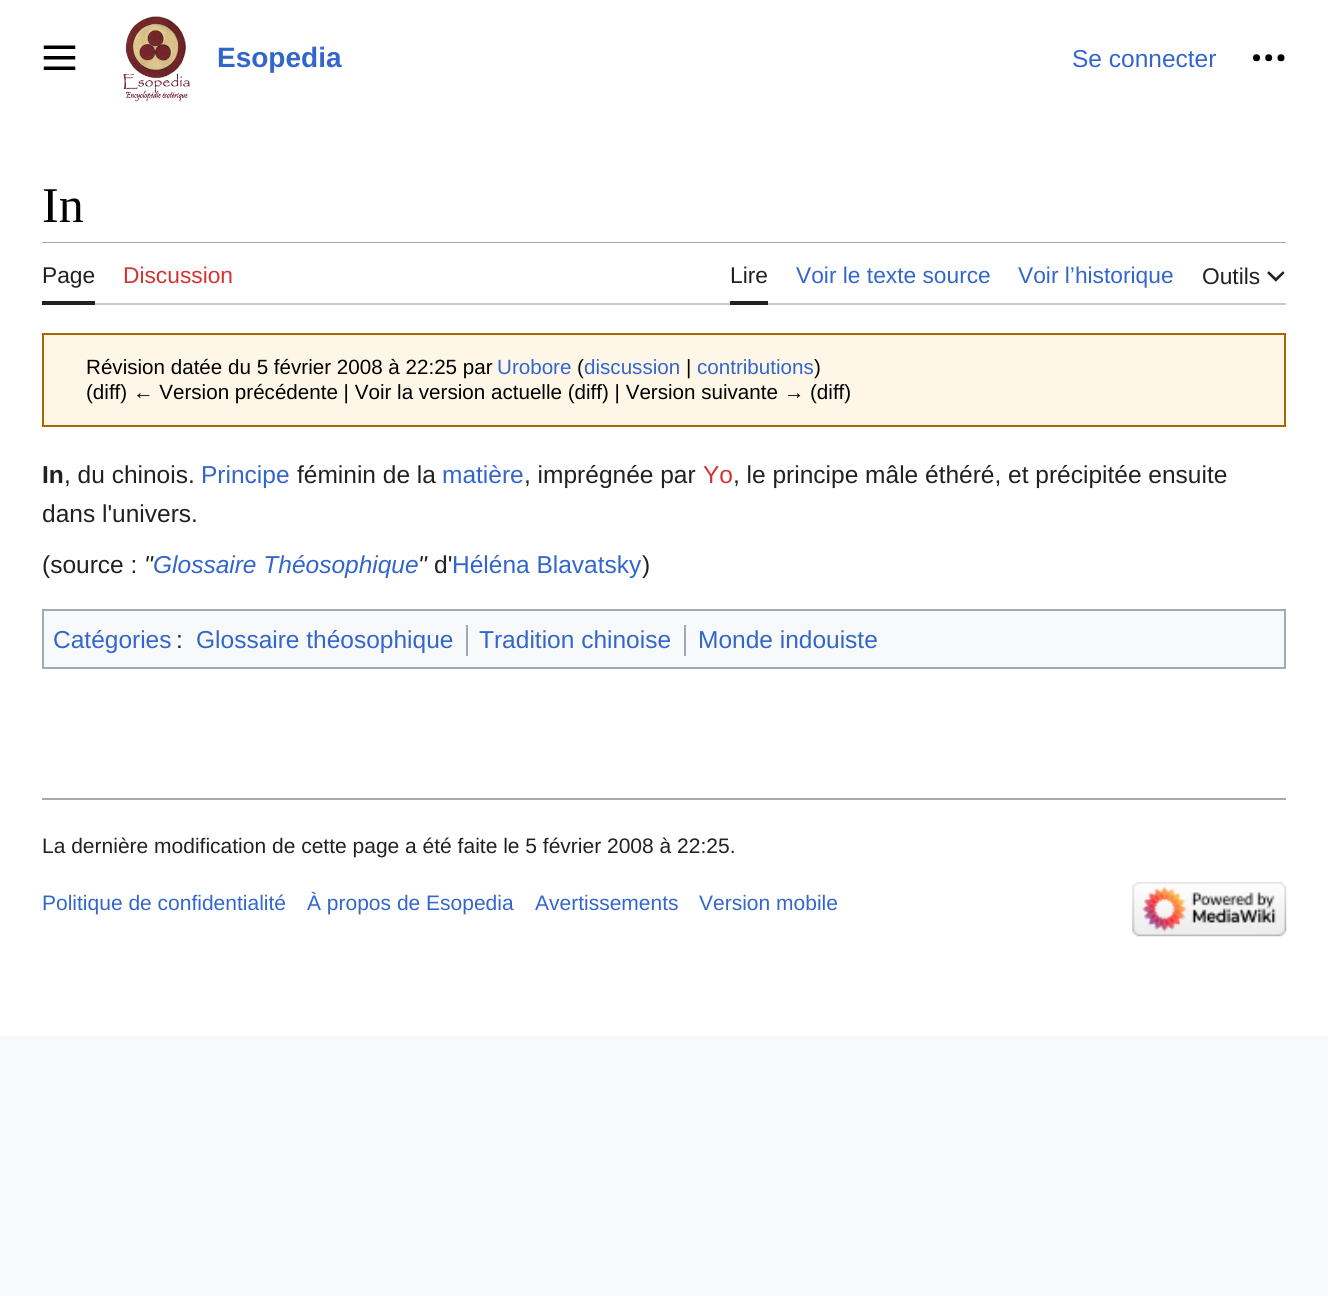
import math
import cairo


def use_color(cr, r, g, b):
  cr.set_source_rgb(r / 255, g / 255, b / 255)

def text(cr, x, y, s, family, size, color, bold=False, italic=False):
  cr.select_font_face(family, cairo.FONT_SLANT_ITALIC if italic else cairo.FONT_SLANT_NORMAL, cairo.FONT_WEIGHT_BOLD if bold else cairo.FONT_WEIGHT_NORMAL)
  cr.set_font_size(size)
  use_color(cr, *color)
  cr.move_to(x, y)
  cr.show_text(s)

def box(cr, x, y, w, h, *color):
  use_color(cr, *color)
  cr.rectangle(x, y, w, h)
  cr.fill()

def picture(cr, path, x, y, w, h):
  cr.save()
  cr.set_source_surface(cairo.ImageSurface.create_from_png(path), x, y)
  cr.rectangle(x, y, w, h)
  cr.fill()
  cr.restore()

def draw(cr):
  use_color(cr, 248, 249, 250)
  cr.paint()
  box(cr, 0, 0, 1328, 1036, 255, 255, 255)
  picture(cr, "img_01.png", 43, 45, 33, 25)
  picture(cr, "img_02.png", 123, 16, 67, 86)
  picture(cr, "img_03.png", 1253, 54, 32, 8)
  box(cr, 42, 242, 1244, 1, 162, 169, 177)
  box(cr, 95, 303, 1191, 2, 200, 204, 209)
  box(cr, 42, 301, 53, 4, 32, 33, 34)
  box(cr, 730, 301, 38, 4, 32, 33, 34)
  picture(cr, "img_04.png", 1267, 271, 18, 11)
  use_color(cr, 254, 246, 231)
  cr.rectangle(43, 334, 1242, 92)
  cr.fill_preserve()
  use_color(cr, 172, 102, 0)
  cr.stroke()
  use_color(cr, 248, 249, 250)
  cr.rectangle(43, 610, 1242, 58)
  cr.fill_preserve()
  use_color(cr, 162, 169, 177)
  cr.stroke()
  box(cr, 466, 625, 2, 31, 162, 169, 177)
  box(cr, 684, 625, 2, 31, 162, 169, 177)
  box(cr, 42, 798, 1244, 2, 162, 169, 177)
  picture(cr, "img_05.png", 1132, 882, 155, 55)
  text(cr, 217, 67, "Esopedia", "Liberation Sans", 28, (51, 102, 204), bold=True)
  text(cr, 1072, 67, "Se connecter", "Liberation Sans", 24.5, (51, 102, 204))
  text(cr, 42, 222, "In", "Liberation Serif", 50, (0, 0, 0))
  text(cr, 42, 283, "Page", "Liberation Sans", 22.75, (32, 33, 34))
  text(cr, 123, 283, "Discussion", "Liberation Sans", 22.75, (215, 51, 51))
  text(cr, 730, 283, "Lire", "Liberation Sans", 22.75, (32, 33, 34))
  text(cr, 796, 283, "Voir le texte source", "Liberation Sans", 22.75, (51, 102, 204))
  text(cr, 1018, 283, "Voir l’historique", "Liberation Sans", 22.75, (51, 102, 204))
  text(cr, 1202, 284, "Outils", "Liberation Sans", 22.75, (32, 33, 34))
  text(cr, 86, 374, "Révision datée du 5 février 2008 à 22:25 par", "Liberation Sans", 20.6, (0, 0, 0))
  text(cr, 497, 374, "Urobore", "Liberation Sans", 20.6, (51, 102, 204))
  text(cr, 577, 374, "(", "Liberation Sans", 20.6, (0, 0, 0))
  text(cr, 584, 374, "discussion", "Liberation Sans", 20.6, (51, 102, 204))
  text(cr, 686, 374, "|", "Liberation Sans", 20.6, (0, 0, 0))
  text(cr, 697, 374, "contributions", "Liberation Sans", 20.6, (51, 102, 204))
  text(cr, 814, 374, ")", "Liberation Sans", 20.6, (0, 0, 0))
  text(cr, 86, 399, "(diff) ← Version précédente | Voir la version actuelle (diff) | Version suivante → (diff)", "Liberation Sans", 20.6, (0, 0, 0))
  text(cr, 42, 483, "In", "Liberation Sans", 24.5, (32, 33, 34), bold=True)
  text(cr, 64, 483, ", du chinois.", "Liberation Sans", 24.5, (32, 33, 34))
  text(cr, 201, 483, "Principe", "Liberation Sans", 24.5, (51, 102, 204))
  text(cr, 297, 483, "féminin de la", "Liberation Sans", 24.5, (32, 33, 34))
  text(cr, 442, 483, "matière", "Liberation Sans", 24.5, (51, 102, 204))
  text(cr, 524, 483, ", imprégnée par", "Liberation Sans", 24.5, (32, 33, 34))
  text(cr, 703, 483, "Yo", "Liberation Sans", 24.5, (215, 51, 51))
  text(cr, 733, 483, ", le principe mâle éthéré, et précipitée ensuite", "Liberation Sans", 24.5, (32, 33, 34))
  text(cr, 42, 522, "dans l'univers.", "Liberation Sans", 24.5, (32, 33, 34))
  text(cr, 42, 573, "(source :", "Liberation Sans", 24.5, (32, 33, 34))
  text(cr, 144, 573, "\"", "Liberation Sans", 24.5, (32, 33, 34), italic=True)
  text(cr, 153, 573, "Glossaire Théosophique", "Liberation Sans", 24.5, (51, 102, 204), italic=True)
  text(cr, 418, 573, "\"", "Liberation Sans", 24.5, (32, 33, 34), italic=True)
  text(cr, 434, 573, "d'", "Liberation Sans", 24.5, (32, 33, 34))
  text(cr, 452, 573, "Héléna Blavatsky", "Liberation Sans", 24.5, (51, 102, 204))
  text(cr, 642, 573, ")", "Liberation Sans", 24.5, (32, 33, 34))
  text(cr, 53, 648, "Catégories", "Liberation Sans", 24.5, (51, 102, 204))
  text(cr, 176, 648, ":", "Liberation Sans", 24.5, (32, 33, 34))
  text(cr, 196, 648, "Glossaire théosophique", "Liberation Sans", 24.5, (51, 102, 204))
  text(cr, 479, 648, "Tradition chinoise", "Liberation Sans", 24.5, (51, 102, 204))
  text(cr, 698, 648, "Monde indouiste", "Liberation Sans", 24.5, (51, 102, 204))
  text(cr, 42, 853, "La dernière modification de cette page a été faite le 5 février 2008 à 22:25.", "Liberation Sans", 21, (32, 33, 34))
  text(cr, 42, 910, "Politique de confidentialité", "Liberation Sans", 21, (51, 102, 204))
  text(cr, 307, 910, "À propos de Esopedia", "Liberation Sans", 21, (51, 102, 204))
  text(cr, 535, 910, "Avertissements", "Liberation Sans", 21, (51, 102, 204))
  text(cr, 699, 910, "Version mobile", "Liberation Sans", 21, (51, 102, 204))


surface = cairo.ImageSurface(cairo.FORMAT_RGB24, 1328, 1296)
cr = cairo.Context(surface)
options = cairo.FontOptions()
options.set_hint_metrics(cairo.HINT_METRICS_OFF)
options.set_hint_style(cairo.HINT_STYLE_NONE)
cr.set_font_options(options)
cr.set_miter_limit(4)
draw(cr)
surface.write_to_png("out.png")
